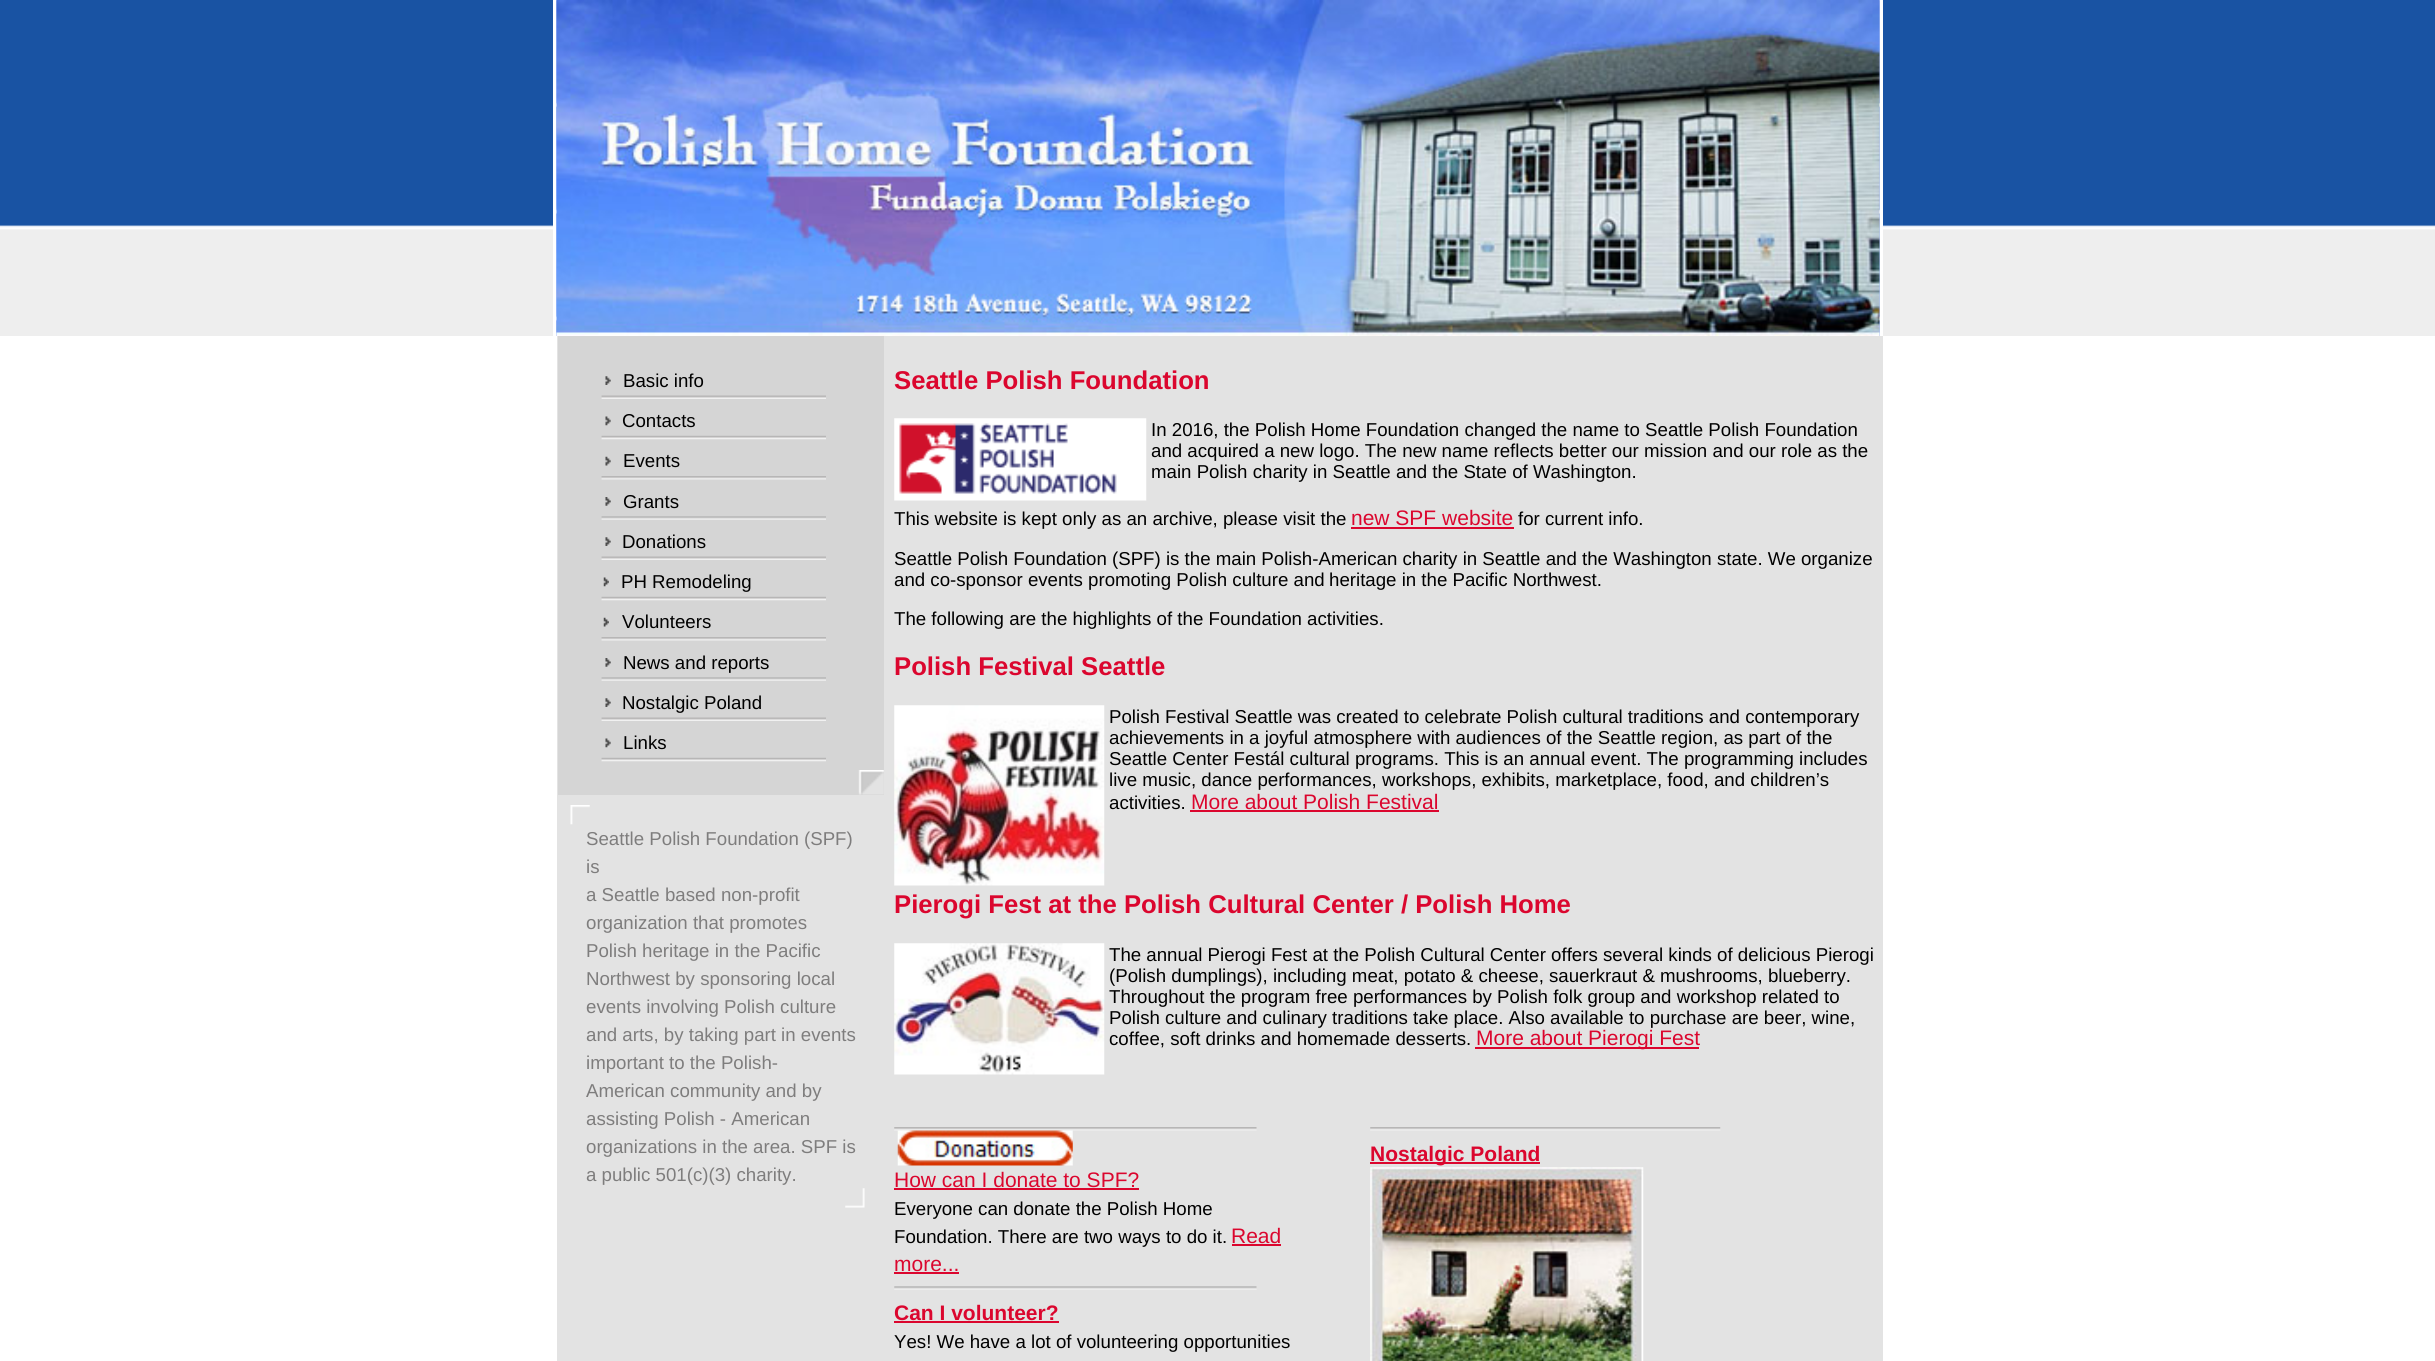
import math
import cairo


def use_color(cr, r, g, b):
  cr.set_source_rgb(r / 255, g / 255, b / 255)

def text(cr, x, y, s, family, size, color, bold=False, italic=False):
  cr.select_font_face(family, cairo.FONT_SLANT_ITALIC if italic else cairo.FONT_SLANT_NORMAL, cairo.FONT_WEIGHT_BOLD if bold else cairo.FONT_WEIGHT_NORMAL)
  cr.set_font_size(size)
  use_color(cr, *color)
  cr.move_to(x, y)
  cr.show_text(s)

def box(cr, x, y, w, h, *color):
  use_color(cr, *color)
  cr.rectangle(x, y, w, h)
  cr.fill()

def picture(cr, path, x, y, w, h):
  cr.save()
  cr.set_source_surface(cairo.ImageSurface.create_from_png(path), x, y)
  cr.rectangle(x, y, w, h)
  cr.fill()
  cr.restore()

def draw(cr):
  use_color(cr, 255, 255, 255)
  cr.paint()
  picture(cr, "img_01.png", 0, 0, 553, 336)
  picture(cr, "img_02.png", 556, 0, 1324, 336)
  picture(cr, "img_03.png", 556, 0, 1324, 336)
  picture(cr, "img_04.png", 1883, 0, 552, 336)
  box(cr, 557, 336, 1326, 1025, 227, 227, 227)
  box(cr, 558, 336, 326, 459, 213, 213, 213)
  picture(cr, "img_05.png", 605, 376, 6, 9)
  picture(cr, "img_06.png", 601, 395, 225, 4)
  picture(cr, "img_07.png", 605, 416, 6, 10)
  picture(cr, "img_08.png", 601, 435, 225, 5)
  picture(cr, "img_09.png", 605, 456, 6, 10)
  picture(cr, "img_10.png", 601, 476, 225, 4)
  picture(cr, "img_11.png", 605, 497, 6, 9)
  picture(cr, "img_12.png", 601, 516, 225, 4)
  picture(cr, "img_05.png", 605, 537, 6, 9)
  picture(cr, "img_06.png", 601, 556, 225, 4)
  picture(cr, "img_13.png", 603, 577, 6, 10)
  picture(cr, "img_08.png", 601, 596, 225, 5)
  picture(cr, "img_14.png", 603, 617, 6, 10)
  picture(cr, "img_10.png", 601, 637, 225, 4)
  picture(cr, "img_11.png", 605, 658, 6, 9)
  picture(cr, "img_12.png", 601, 677, 225, 4)
  picture(cr, "img_05.png", 605, 698, 6, 9)
  picture(cr, "img_06.png", 601, 717, 225, 4)
  picture(cr, "img_07.png", 605, 738, 6, 10)
  picture(cr, "img_08.png", 601, 757, 225, 5)
  picture(cr, "img_15.png", 858, 770, 26, 25)
  picture(cr, "img_16.png", 570, 805, 20, 20)
  picture(cr, "img_17.png", 845, 1188, 20, 20)
  picture(cr, "img_18.png", 894, 418, 253, 83)
  box(cr, 1351, 527, 163, 2, 219, 6, 46)
  picture(cr, "img_19.png", 894, 705, 211, 181)
  box(cr, 1190, 810, 249, 2, 219, 6, 46)
  picture(cr, "img_20.png", 894, 943, 211, 132)
  box(cr, 1475, 1047, 224, 2, 219, 6, 46)
  picture(cr, "img_21.png", 1370, 1127, 351, 4)
  box(cr, 1370, 1162, 170, 2, 219, 6, 46)
  picture(cr, "img_22.png", 1370, 1167, 274, 194)
  picture(cr, "img_23.png", 894, 1127, 363, 4)
  picture(cr, "img_24.png", 897, 1130, 176, 36)
  box(cr, 894, 1188, 245, 2, 219, 6, 46)
  box(cr, 1232, 1244, 49, 2, 219, 6, 46)
  box(cr, 894, 1272, 65, 2, 219, 6, 46)
  picture(cr, "img_25.png", 894, 1286, 363, 4)
  box(cr, 894, 1321, 165, 2, 219, 6, 46)
  text(cr, 623, 387, "Basic info", "Liberation Sans", 18.67, (0, 0, 0))
  text(cr, 622, 427, "Contacts", "Liberation Sans", 18.67, (0, 0, 0))
  text(cr, 623, 467, "Events", "Liberation Sans", 18.67, (0, 0, 0))
  text(cr, 623, 508, "Grants", "Liberation Sans", 18.67, (0, 0, 0))
  text(cr, 622, 548, "Donations", "Liberation Sans", 18.67, (0, 0, 0))
  text(cr, 621, 588, "PH Remodeling", "Liberation Sans", 18.67, (0, 0, 0))
  text(cr, 622, 628, "Volunteers", "Liberation Sans", 18.67, (0, 0, 0))
  text(cr, 623, 669, "News and reports", "Liberation Sans", 18.67, (0, 0, 0))
  text(cr, 622, 709, "Nostalgic Poland", "Liberation Sans", 18.67, (0, 0, 0))
  text(cr, 623, 749, "Links", "Liberation Sans", 18.67, (0, 0, 0))
  text(cr, 586, 845, "Seattle Polish Foundation (SPF)", "Liberation Sans", 18.67, (126, 125, 125))
  text(cr, 586, 873, "is", "Liberation Sans", 18.67, (126, 125, 125))
  text(cr, 586, 901, "a Seattle based non-profit", "Liberation Sans", 18.67, (126, 125, 125))
  text(cr, 586, 929, "organization that promotes", "Liberation Sans", 18.67, (126, 125, 125))
  text(cr, 586, 957, "Polish heritage in the Pacific", "Liberation Sans", 18.67, (126, 125, 125))
  text(cr, 586, 985, "Northwest by sponsoring local", "Liberation Sans", 18.67, (126, 125, 125))
  text(cr, 586, 1013, "events involving Polish culture", "Liberation Sans", 18.67, (126, 125, 125))
  text(cr, 586, 1041, "and arts, by taking part in events", "Liberation Sans", 18.67, (126, 125, 125))
  text(cr, 586, 1069, "important to the Polish-", "Liberation Sans", 18.67, (126, 125, 125))
  text(cr, 586, 1097, "American community and by", "Liberation Sans", 18.67, (126, 125, 125))
  text(cr, 586, 1125, "assisting Polish - American", "Liberation Sans", 18.67, (126, 125, 125))
  text(cr, 586, 1153, "organizations in the area. SPF is", "Liberation Sans", 18.67, (126, 125, 125))
  text(cr, 586, 1181, "a public 501(c)(3) charity.", "Liberation Sans", 18.67, (126, 125, 125))
  text(cr, 894, 389, "Seattle Polish Foundation", "Liberation Sans", 25.7, (219, 6, 46), bold=True)
  text(cr, 1151, 436, "In 2016, the Polish Home Foundation changed the name to Seattle Polish Foundation", "Liberation Sans", 18.67, (0, 0, 0))
  text(cr, 1151, 457, "and acquired a new logo. The new name reflects better our mission and our role as the", "Liberation Sans", 18.67, (0, 0, 0))
  text(cr, 1151, 478, "main Polish charity in Seattle and the State of Washington.", "Liberation Sans", 18.67, (0, 0, 0))
  text(cr, 894, 525, "This website is kept only as an archive, please visit the", "Liberation Sans", 18.67, (0, 0, 0))
  text(cr, 1351, 525, "new SPF website", "Liberation Sans", 21, (219, 6, 46))
  text(cr, 1518, 525, "for current info.", "Liberation Sans", 18.67, (0, 0, 0))
  text(cr, 894, 565, "Seattle Polish Foundation (SPF) is the main Polish-American charity in Seattle and the Washington state. We organize", "Liberation Sans", 18.67, (0, 0, 0))
  text(cr, 894, 586, "and co-sponsor events promoting Polish culture and", "Liberation Sans", 18.67, (0, 0, 0))
  text(cr, 1329, 586, "heritage in the Pacific Northwest.", "Liberation Sans", 18.67, (0, 0, 0))
  text(cr, 894, 625, "The following are the highlights of the Foundation activities.", "Liberation Sans", 18.67, (0, 0, 0))
  text(cr, 894, 675, "Polish Festival Seattle", "Liberation Sans", 25.7, (219, 6, 46), bold=True)
  text(cr, 1109, 723, "Polish Festival Seattle was created to celebrate Polish cultural traditions and contemporary", "Liberation Sans", 18.67, (0, 0, 0))
  text(cr, 1109, 744, "achievements in a joyful atmosphere with audiences of the Seattle region, as part of the", "Liberation Sans", 18.67, (0, 0, 0))
  text(cr, 1109, 765, "Seattle Center Festál cultural programs. This is an annual event. The programming includes", "Liberation Sans", 18.67, (0, 0, 0))
  text(cr, 1109, 786, "live music, dance performances, workshops, exhibits, marketplace, food, and children’s", "Liberation Sans", 18.67, (0, 0, 0))
  text(cr, 1109, 809, "activities.", "Liberation Sans", 18.67, (0, 0, 0))
  text(cr, 1191, 809, "More about Polish Festival", "Liberation Sans", 21, (219, 6, 46))
  text(cr, 894, 913, "Pierogi Fest at the Polish Cultural Center / Polish Home", "Liberation Sans", 25.7, (219, 6, 46), bold=True)
  text(cr, 1109, 961, "The annual Pierogi Fest at the Polish Cultural Center offers several kinds of delicious Pierogi", "Liberation Sans", 18.67, (0, 0, 0))
  text(cr, 1109, 982, "(Polish dumplings), including meat, potato & cheese, sauerkraut & mushrooms, blueberry.", "Liberation Sans", 18.67, (0, 0, 0))
  text(cr, 1109, 1003, "Throughout the program free performances by Polish folk group and workshop related to", "Liberation Sans", 18.67, (0, 0, 0))
  text(cr, 1109, 1024, "Polish culture and culinary traditions take place. Also available to purchase are beer, wine,", "Liberation Sans", 18.67, (0, 0, 0))
  text(cr, 1109, 1045, "coffee, soft drinks and homemade desserts.", "Liberation Sans", 18.67, (0, 0, 0))
  text(cr, 1476, 1045, "More about Pierogi Fest", "Liberation Sans", 21, (219, 6, 46))
  text(cr, 1370, 1161, "Nostalgic Poland", "Liberation Sans", 21, (219, 6, 46), bold=True)
  text(cr, 894, 1187, "How can I donate to SPF?", "Liberation Sans", 21, (219, 6, 46))
  text(cr, 894, 1215, "Everyone can donate the Polish Home", "Liberation Sans", 18.67, (0, 0, 0))
  text(cr, 894, 1243, "Foundation. There are two ways to do it.", "Liberation Sans", 18.67, (0, 0, 0))
  text(cr, 1231, 1243, "Read", "Liberation Sans", 21, (219, 6, 46))
  text(cr, 894, 1271, "more...", "Liberation Sans", 21, (219, 6, 46))
  text(cr, 894, 1320, "Can I volunteer?", "Liberation Sans", 21, (219, 6, 46), bold=True)
  text(cr, 894, 1348, "Yes! We have a lot of volunteering opportunities", "Liberation Sans", 18.67, (0, 0, 0))


surface = cairo.ImageSurface(cairo.FORMAT_RGB24, 2435, 1361)
cr = cairo.Context(surface)
options = cairo.FontOptions()
options.set_hint_metrics(cairo.HINT_METRICS_OFF)
options.set_hint_style(cairo.HINT_STYLE_NONE)
cr.set_font_options(options)
cr.set_miter_limit(4)
draw(cr)
surface.write_to_png("out.png")
